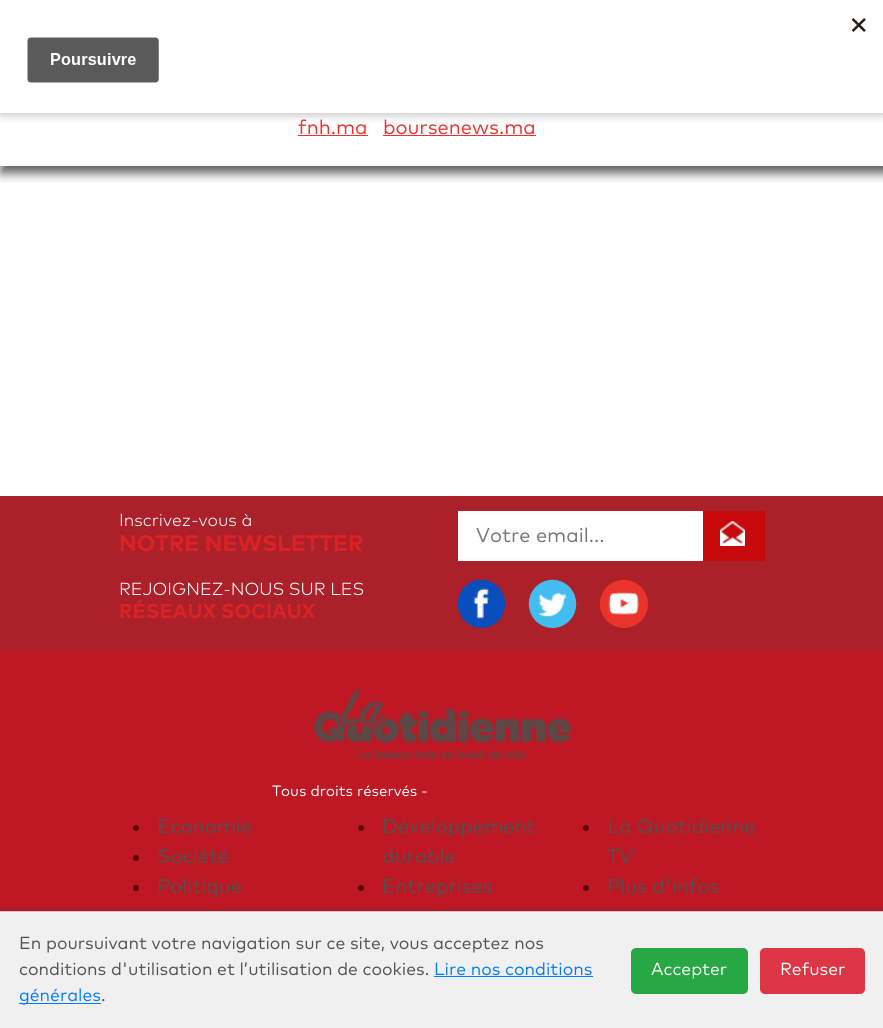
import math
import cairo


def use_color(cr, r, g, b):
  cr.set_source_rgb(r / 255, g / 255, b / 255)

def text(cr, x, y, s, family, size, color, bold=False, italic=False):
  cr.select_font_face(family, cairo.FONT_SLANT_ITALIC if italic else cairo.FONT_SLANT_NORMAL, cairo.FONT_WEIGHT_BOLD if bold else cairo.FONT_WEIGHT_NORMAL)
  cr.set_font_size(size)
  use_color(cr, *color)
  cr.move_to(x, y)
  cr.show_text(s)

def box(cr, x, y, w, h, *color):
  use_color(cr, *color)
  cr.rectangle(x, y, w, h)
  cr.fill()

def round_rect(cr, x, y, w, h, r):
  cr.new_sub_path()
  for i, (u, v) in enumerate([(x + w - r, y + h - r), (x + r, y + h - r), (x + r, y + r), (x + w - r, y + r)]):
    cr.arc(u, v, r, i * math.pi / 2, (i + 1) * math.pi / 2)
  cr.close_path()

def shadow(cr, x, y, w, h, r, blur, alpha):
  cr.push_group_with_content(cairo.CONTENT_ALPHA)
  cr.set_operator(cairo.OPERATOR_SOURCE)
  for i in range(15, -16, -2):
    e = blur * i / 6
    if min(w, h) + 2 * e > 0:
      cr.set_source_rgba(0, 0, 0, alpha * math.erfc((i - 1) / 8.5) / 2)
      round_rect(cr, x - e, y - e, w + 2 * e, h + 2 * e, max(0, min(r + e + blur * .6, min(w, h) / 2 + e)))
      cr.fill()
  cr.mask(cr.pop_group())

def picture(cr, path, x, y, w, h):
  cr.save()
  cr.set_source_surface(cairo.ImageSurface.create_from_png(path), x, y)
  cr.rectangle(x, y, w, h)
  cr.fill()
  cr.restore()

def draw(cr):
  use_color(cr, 255, 255, 255)
  cr.paint()
  use_color(cr, 0, 0, 0)
  shadow(cr, 0, 4, 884, 112, 0, 4, 0.2)
  cr.save()
  cr.rectangle(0, 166, 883, 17)
  cr.clip()
  shadow(cr, 1, 4, 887, 169, 0, 5.5, 0.65)
  cr.restore()
  box(cr, 0, 0, 883, 113, 255, 255, 255)
  picture(cr, "img_01.png", 27, 18, 839, 65)
  box(cr, 298, 135, 70, 1, 237, 49, 46)
  box(cr, 383, 135, 153, 1, 237, 49, 46)
  box(cr, 0, 651, 883, 260, 189, 24, 36)
  box(cr, 0, 496, 883, 155, 172, 32, 42)
  box(cr, 458, 511, 245, 50, 255, 255, 255)
  box(cr, 703, 511, 62, 50, 199, 9, 11)
  picture(cr, "img_02.png", 720, 521, 25, 25)
  use_color(cr, 10, 78, 188)
  round_rect(cr, 458, 580, 47, 48, 23.5)
  cr.fill()
  picture(cr, "img_03.png", 457, 579, 48, 42)
  use_color(cr, 67, 189, 239)
  round_rect(cr, 529, 580, 47, 48, 23.5)
  cr.fill()
  picture(cr, "img_04.png", 528, 579, 49, 38)
  use_color(cr, 234, 51, 42)
  cr.arc(624, 604, 24, 0, 2 * math.pi)
  cr.fill()
  picture(cr, "img_05.png", 600, 579, 41, 36)
  picture(cr, "img_06.png", 313, 688, 259, 71)
  use_color(cr, 97, 0, 1)
  cr.arc(136, 828, 3, 0, 2 * math.pi)
  cr.fill()
  cr.arc(136, 858, 3, 0, 2 * math.pi)
  cr.fill()
  cr.arc(136, 888, 3, 0, 2 * math.pi)
  cr.fill()
  cr.arc(361, 828, 3, 0, 2 * math.pi)
  cr.fill()
  cr.arc(361, 888, 3, 0, 2 * math.pi)
  cr.fill()
  cr.arc(586, 828, 3, 0, 2 * math.pi)
  cr.fill()
  cr.arc(586, 888, 3, 0, 2 * math.pi)
  cr.fill()
  use_color(cr, 0, 0, 0)
  shadow(cr, 0, 909, 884, 117, 0, 3, 0.1)
  box(cr, 0, 912, 883, 116, 240, 240, 240)
  box(cr, 0, 911, 883, 1, 204, 204, 204)
  box(cr, 434, 976, 159, 1, 0, 123, 255)
  box(cr, 19, 1003, 82, 1, 0, 123, 255)
  use_color(cr, 40, 167, 69)
  round_rect(cr, 631, 948, 117, 46, 5)
  cr.fill()
  use_color(cr, 220, 53, 69)
  round_rect(cr, 760, 948, 105, 46, 5)
  cr.fill()
  text(cr, 298, 134, "fnh.ma", "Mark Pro", 20, (237, 49, 46))
  text(cr, 383, 134, "boursenews.ma", "Mark Pro", 20, (237, 49, 46))
  text(cr, 119, 526, "Inscrivez-vous à", "Mark Pro Light", 17.5, (255, 255, 255))
  text(cr, 119, 551, "NOTRE NEWSLETTER", "Mark Pro", 22.5, (220, 34, 37), bold=True)
  text(cr, 476, 542, "Votre email...", "Mark Pro", 20, (117, 117, 117))
  text(cr, 119, 595, "REJOIGNEZ-NOUS SUR LES", "Mark Pro Light", 17.5, (255, 255, 255))
  text(cr, 119, 618, "RÉSEAUX SOCIAUX", "Mark Pro", 20, (220, 34, 37), bold=True)
  text(cr, 272, 796, "Tous droits réservés -", "Mark Pro", 15, (255, 255, 255))
  text(cr, 157, 833, "Economie", "Mark Pro", 20, (81, 81, 81))
  text(cr, 157, 863, "Société", "Mark Pro", 20, (81, 81, 81))
  text(cr, 157, 893, "Politique", "Mark Pro", 20, (81, 81, 81))
  text(cr, 382, 833, "Développement", "Mark Pro", 20, (81, 81, 81))
  text(cr, 382, 863, "durable", "Mark Pro", 20, (81, 81, 81))
  text(cr, 382, 893, "Entreprises", "Mark Pro", 20, (81, 81, 81))
  text(cr, 607, 833, "La Quotidienne", "Mark Pro", 20, (81, 81, 81))
  text(cr, 607, 863, "TV", "Mark Pro", 20, (81, 81, 81))
  text(cr, 607, 893, "Plus d'infos", "Mark Pro", 20, (81, 81, 81))
  text(cr, 19, 949, "En poursuivant votre navigation sur ce site, vous acceptez nos", "Mark Pro", 17.5, (81, 81, 81))
  text(cr, 19, 975, "conditions d'utilisation et l’utilisation de cookies.", "Mark Pro", 17.5, (81, 81, 81))
  text(cr, 434, 975, "Lire nos conditions", "Mark Pro", 17.5, (0, 123, 255))
  text(cr, 19, 1001, "générales", "Mark Pro", 17.5, (0, 123, 255))
  text(cr, 101, 1001, ".", "Mark Pro", 17.5, (81, 81, 81))
  text(cr, 651, 975, "Accepter", "Mark Pro", 17.5, (255, 255, 255))
  text(cr, 780, 975, "Refuser", "Mark Pro", 17.5, (255, 255, 255))


surface = cairo.ImageSurface(cairo.FORMAT_RGB24, 883, 1028)
cr = cairo.Context(surface)
options = cairo.FontOptions()
options.set_hint_metrics(cairo.HINT_METRICS_OFF)
options.set_hint_style(cairo.HINT_STYLE_NONE)
cr.set_font_options(options)
cr.set_miter_limit(4)
draw(cr)
surface.write_to_png("out.png")
